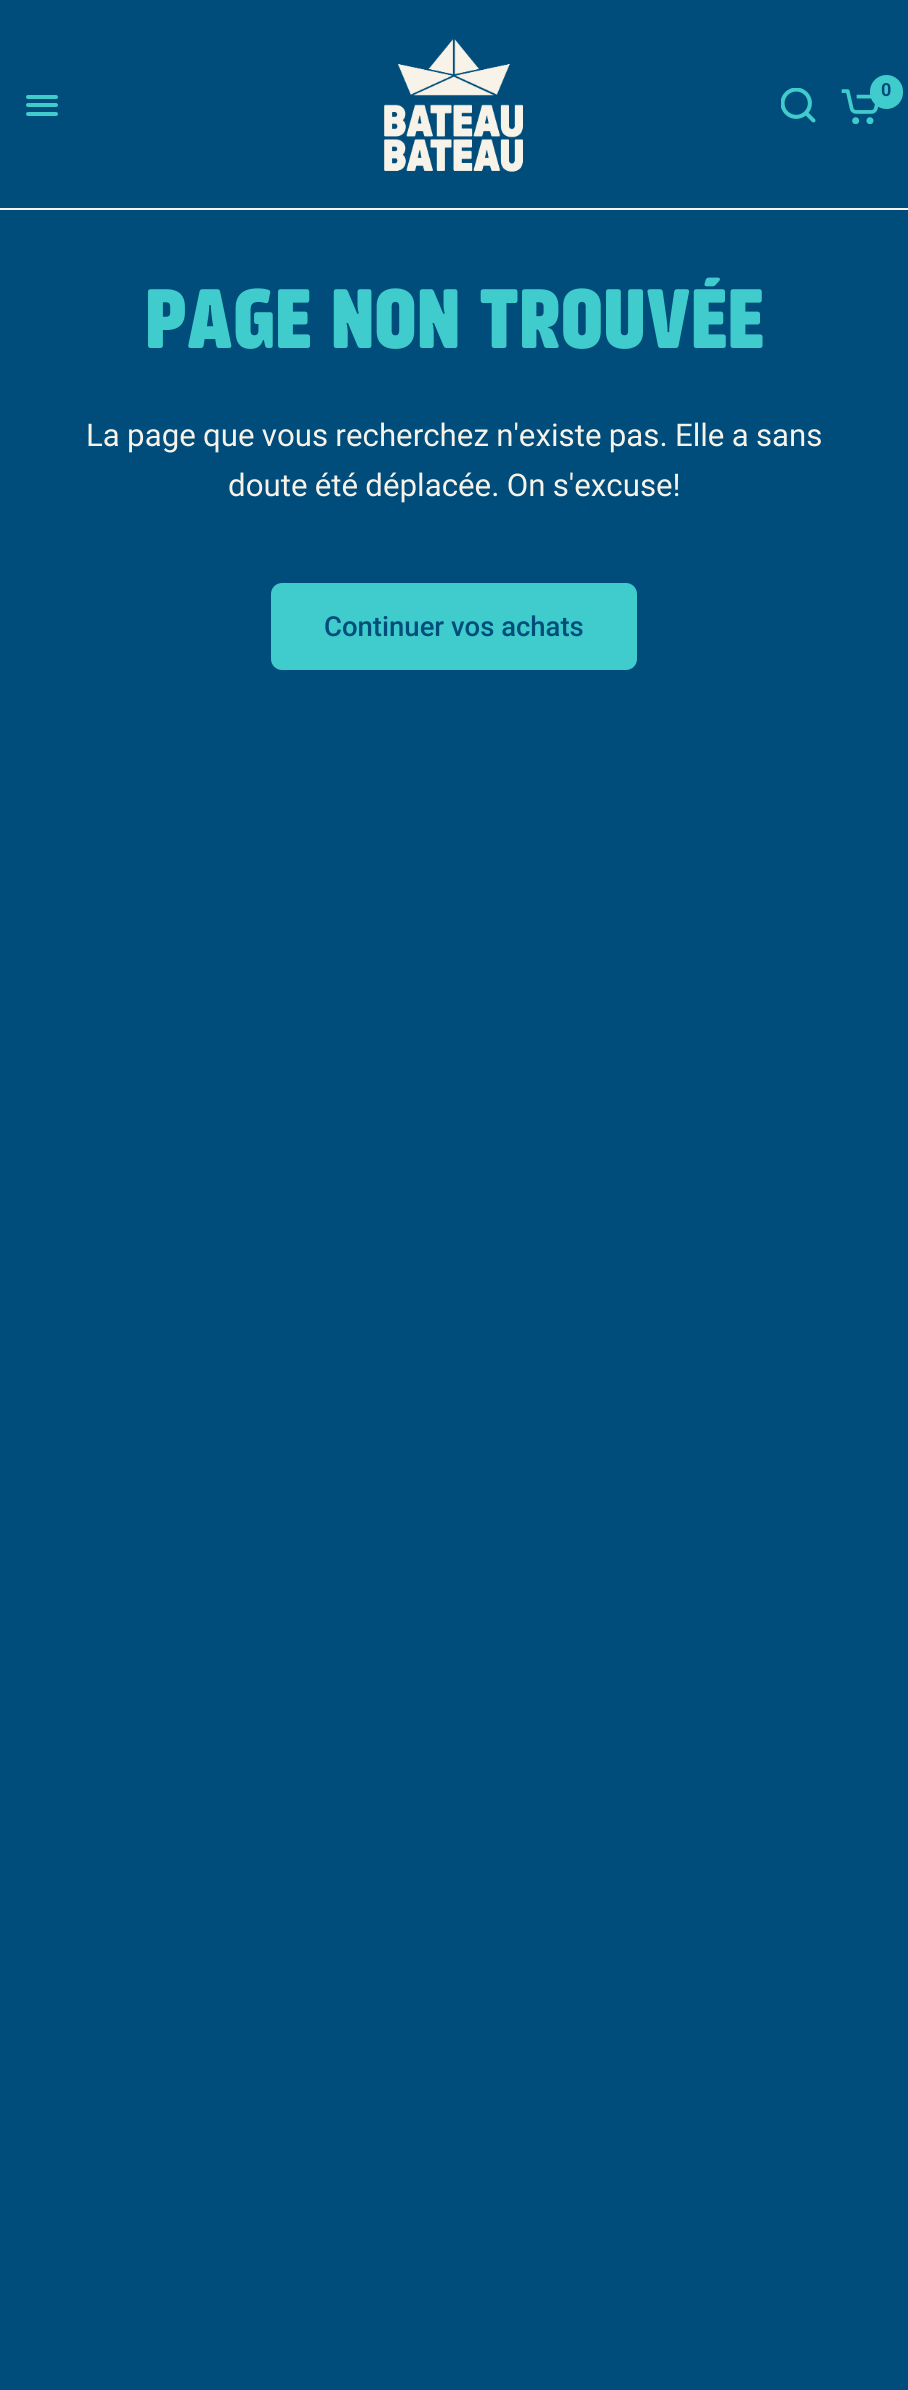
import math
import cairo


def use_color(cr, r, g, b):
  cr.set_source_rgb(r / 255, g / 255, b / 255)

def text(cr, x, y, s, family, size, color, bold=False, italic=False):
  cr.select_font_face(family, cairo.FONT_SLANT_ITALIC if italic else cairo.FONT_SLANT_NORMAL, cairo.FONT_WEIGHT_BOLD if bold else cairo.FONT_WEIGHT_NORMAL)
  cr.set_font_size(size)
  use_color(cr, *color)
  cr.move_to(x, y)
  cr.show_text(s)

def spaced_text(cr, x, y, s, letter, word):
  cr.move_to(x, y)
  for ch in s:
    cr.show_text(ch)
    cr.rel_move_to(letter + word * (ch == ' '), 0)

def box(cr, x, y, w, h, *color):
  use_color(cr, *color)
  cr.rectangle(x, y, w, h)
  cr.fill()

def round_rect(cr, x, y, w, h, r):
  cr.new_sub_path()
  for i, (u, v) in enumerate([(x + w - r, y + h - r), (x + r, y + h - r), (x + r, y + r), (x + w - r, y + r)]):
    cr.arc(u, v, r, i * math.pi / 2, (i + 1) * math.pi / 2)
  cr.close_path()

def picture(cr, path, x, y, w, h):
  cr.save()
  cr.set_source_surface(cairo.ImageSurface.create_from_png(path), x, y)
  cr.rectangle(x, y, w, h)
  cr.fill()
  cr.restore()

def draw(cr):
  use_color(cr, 0, 77, 123)
  cr.paint()
  picture(cr, "img_01.png", 384, 39, 139, 133)
  picture(cr, "img_02.png", 781, 88, 35, 35)
  picture(cr, "img_03.png", 841, 89, 38, 35)
  use_color(cr, 64, 204, 204)
  round_rect(cr, 870, 75, 33, 34, 16.5)
  cr.fill()
  round_rect(cr, 26, 95, 32, 4, 2)
  cr.fill()
  round_rect(cr, 26, 103, 32, 4, 2)
  cr.fill()
  round_rect(cr, 26, 112, 32, 4, 2)
  cr.fill()
  box(cr, 0, 208, 908, 2, 247, 243, 233)
  use_color(cr, 64, 204, 204)
  round_rect(cr, 271, 583, 366, 87, 11)
  cr.fill()
  text(cr, 881, 96, "0", "Roboto", 18, (0, 77, 123), bold=True)
  text(cr, 145, 348, "PAGE NON TROUVÉE", "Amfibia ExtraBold", 84, (64, 204, 204))
  cr.select_font_face("Roboto")
  cr.set_font_size(31.25)
  use_color(cr, 247, 243, 233)
  spaced_text(cr, 86, 446, "La page que vous recherchez n'existe pas. Elle a sans", 0, -0.5)
  spaced_text(cr, 228, 496, "doute été déplacée. On s'excuse!", 0, -0.5)
  text(cr, 324, 636, "Continuer vos achats", "Roboto Medium", 27.5, (0, 77, 123))


surface = cairo.ImageSurface(cairo.FORMAT_RGB24, 908, 2390)
cr = cairo.Context(surface)
options = cairo.FontOptions()
options.set_hint_metrics(cairo.HINT_METRICS_OFF)
options.set_hint_style(cairo.HINT_STYLE_NONE)
cr.set_font_options(options)
cr.set_miter_limit(4)
draw(cr)
surface.write_to_png("out.png")
